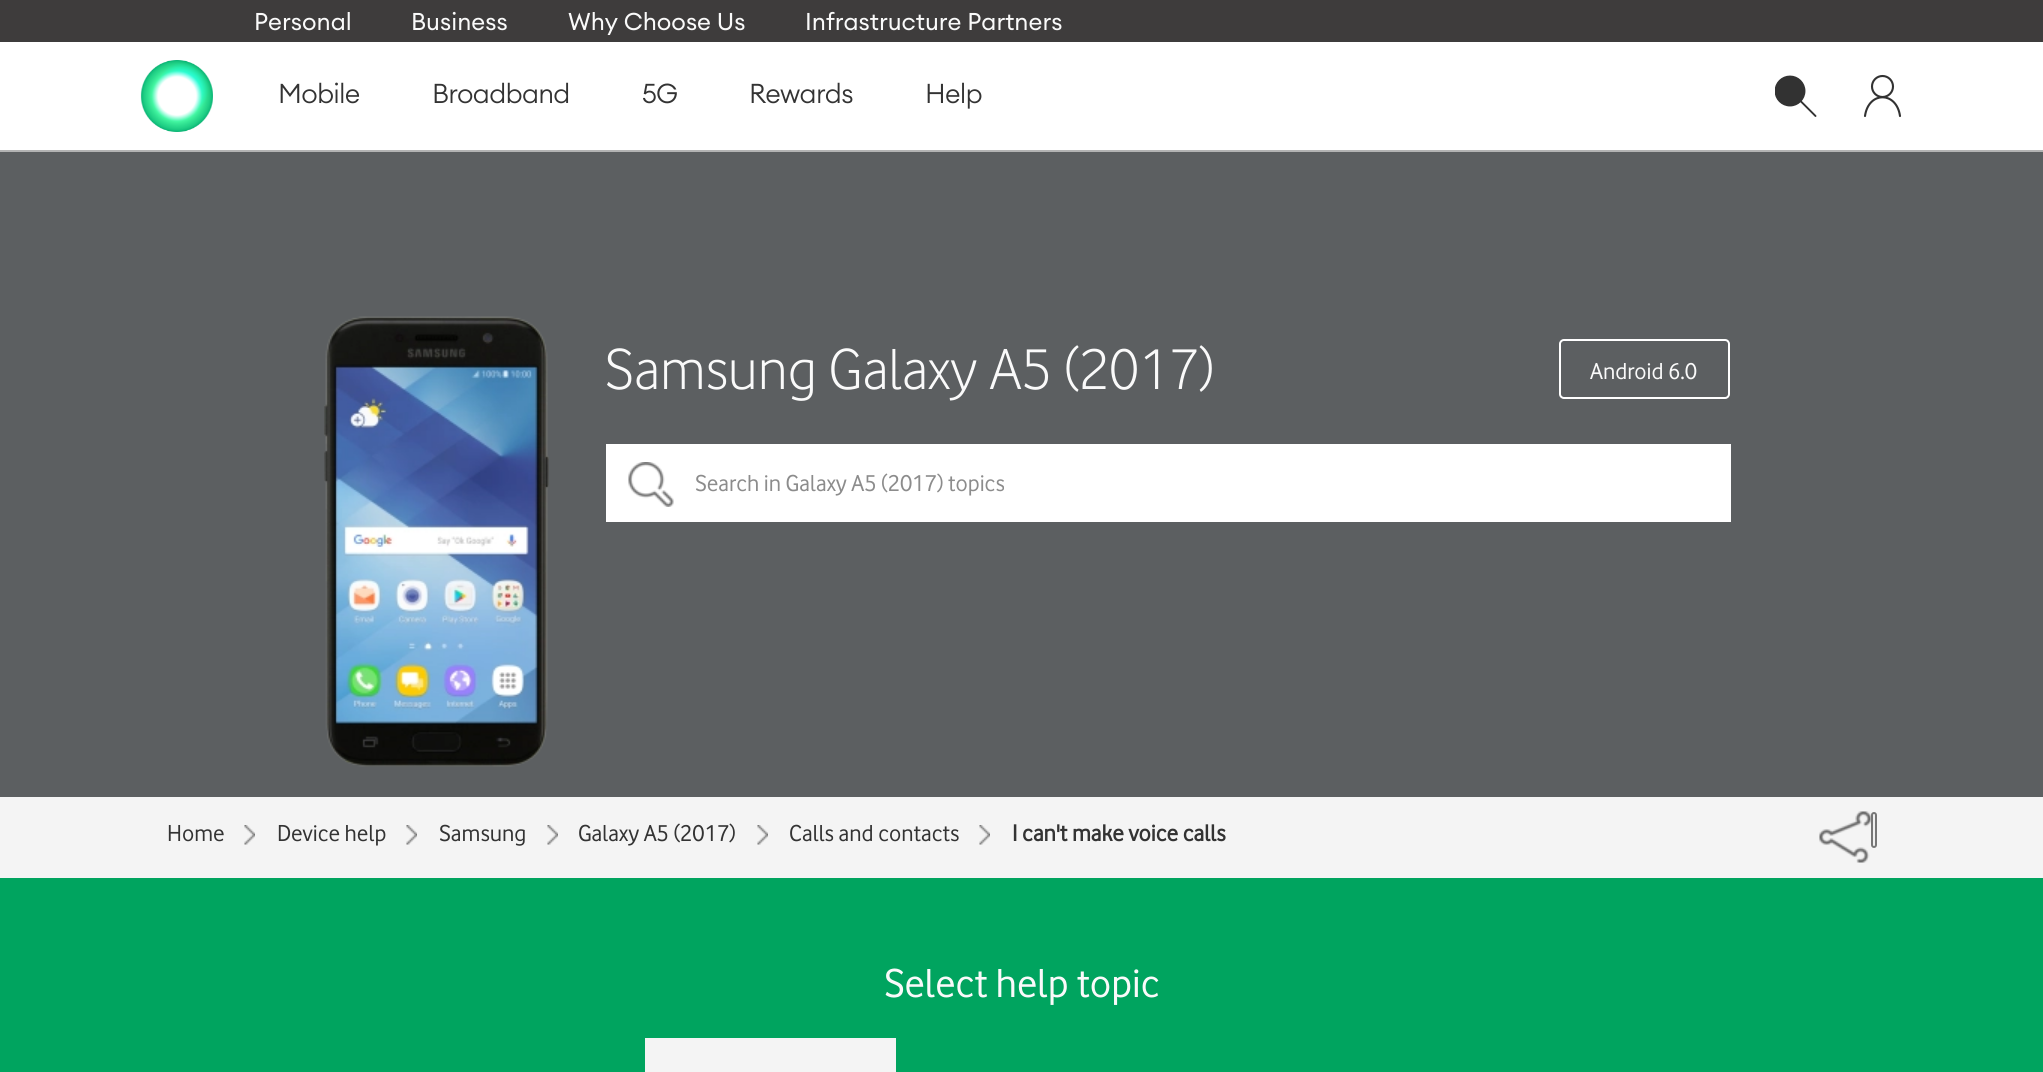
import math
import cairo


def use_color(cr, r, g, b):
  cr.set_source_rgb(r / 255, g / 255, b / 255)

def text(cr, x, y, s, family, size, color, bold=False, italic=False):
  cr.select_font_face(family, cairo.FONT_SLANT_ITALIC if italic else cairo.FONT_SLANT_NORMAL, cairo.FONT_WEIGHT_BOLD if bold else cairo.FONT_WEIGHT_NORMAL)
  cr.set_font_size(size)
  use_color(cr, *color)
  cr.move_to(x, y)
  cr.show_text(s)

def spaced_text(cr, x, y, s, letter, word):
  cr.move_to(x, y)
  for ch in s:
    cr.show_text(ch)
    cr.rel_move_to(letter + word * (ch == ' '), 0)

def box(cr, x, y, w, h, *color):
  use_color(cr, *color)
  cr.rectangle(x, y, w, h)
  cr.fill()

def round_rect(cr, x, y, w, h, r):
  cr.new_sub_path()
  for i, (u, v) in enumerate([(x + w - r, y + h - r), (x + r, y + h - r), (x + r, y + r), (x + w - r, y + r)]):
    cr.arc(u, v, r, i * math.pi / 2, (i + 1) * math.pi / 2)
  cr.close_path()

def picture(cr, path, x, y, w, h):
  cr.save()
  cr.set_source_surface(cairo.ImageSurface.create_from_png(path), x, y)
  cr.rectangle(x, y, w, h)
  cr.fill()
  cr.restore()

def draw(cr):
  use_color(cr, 255, 255, 255)
  cr.paint()
  box(cr, 0, 0, 2043, 42, 62, 60, 60)
  box(cr, 0, 150, 2043, 2, 179, 179, 179)
  picture(cr, "img_01.png", 140, 60, 73, 72)
  use_color(cr, 50, 50, 50)
  cr.arc(1790, 91, 14.5, 0, 2 * math.pi)
  cr.fill()
  cr.save()
  cr.rectangle(1775, 75, 42, 42)
  cr.clip()
  cr.arc(1790, 91, 14.5, 0, 2 * math.pi)
  cr.set_line_width(1.9)
  cr.stroke()
  cr.restore()
  cr.new_path()
  cr.move_to(1800.5, 101)
  cr.line_to(1815.5, 116)
  cr.set_line_width(1.9)
  cr.set_line_cap(cairo.LINE_CAP_ROUND)
  cr.set_line_join(cairo.LINE_JOIN_ROUND)
  cr.stroke()
  cr.arc(1882.5, 86.5, 10.5, 0, 2 * math.pi)
  cr.set_line_width(2.1)
  cr.set_line_cap(cairo.LINE_CAP_BUTT)
  cr.set_line_join(cairo.LINE_JOIN_MITER)
  cr.stroke()
  cr.new_path()
  cr.move_to(1900, 116)
  cr.curve_to(1896.5, 91, 1868.5, 91, 1865, 116)
  cr.set_line_cap(cairo.LINE_CAP_ROUND)
  cr.set_line_join(cairo.LINE_JOIN_ROUND)
  cr.stroke()
  box(cr, 0, 152, 2043, 645, 92, 95, 97)
  picture(cr, "img_02.png", 324, 316, 225, 451)
  round_rect(cr, 1560, 340, 169, 58, 4)
  use_color(cr, 255, 255, 255)
  cr.set_line_width(2)
  cr.set_line_cap(cairo.LINE_CAP_BUTT)
  cr.set_line_join(cairo.LINE_JOIN_MITER)
  cr.stroke()
  box(cr, 606, 444, 1125, 78, 255, 255, 255)
  picture(cr, "img_03.png", 628, 462, 46, 45)
  box(cr, 0, 797, 2043, 81, 244, 244, 244)
  picture(cr, "img_04.png", 244, 825, 11, 20)
  picture(cr, "img_05.png", 406, 825, 11, 20)
  picture(cr, "img_05.png", 547, 825, 11, 20)
  picture(cr, "img_06.png", 757, 825, 11, 20)
  picture(cr, "img_04.png", 979, 825, 11, 20)
  picture(cr, "img_07.png", 1819, 811, 52, 52)
  use_color(cr, 239, 239, 239)
  round_rect(cr, 1872, 813, 4, 34, 2)
  cr.fill_preserve()
  use_color(cr, 118, 118, 118)
  cr.stroke()
  box(cr, 0, 878, 2043, 194, 0, 164, 95)
  box(cr, 645, 1038, 251, 34, 244, 244, 244)
  text(cr, 254, 30, "Personal", "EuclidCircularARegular", 24, (250, 250, 250))
  text(cr, 411, 30, "Business", "EuclidCircularARegular", 24, (250, 250, 250))
  text(cr, 568, 30, "Why Choose Us", "EuclidCircularARegular", 24, (250, 250, 250))
  text(cr, 805, 30, "Infrastructure Partners", "EuclidCircularARegular", 24, (250, 250, 250))
  cr.select_font_face("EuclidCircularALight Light")
  cr.set_font_size(27)
  use_color(cr, 51, 51, 51)
  spaced_text(cr, 278, 103, "Mobile", -0.75, 0)
  spaced_text(cr, 432, 103, "Broadband", -0.75, 0)
  spaced_text(cr, 642, 103, "5G", -0.75, 0)
  spaced_text(cr, 749, 103, "Rewards", -0.75, 0)
  spaced_text(cr, 925, 103, "Help", -0.75, 0)
  text(cr, 605, 389, "Samsung Galaxy A5 (2017)", "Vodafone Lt", 60, (250, 250, 250))
  text(cr, 1590, 379, "Android 6.0", "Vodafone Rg", 24, (250, 250, 250))
  text(cr, 695, 491, "Search in Galaxy A5 (2017) topics", "Vodafone Rg", 24, (140, 140, 140))
  text(cr, 167, 841, "Home", "Vodafone Rg", 24, (51, 51, 51))
  text(cr, 277, 841, "Device help", "Vodafone Rg", 24, (51, 51, 51))
  text(cr, 439, 841, "Samsung", "Vodafone Rg", 24, (51, 51, 51))
  text(cr, 578, 841, "Galaxy A5 (2017)", "Vodafone Rg", 24, (51, 51, 51))
  text(cr, 789, 841, "Calls and contacts", "Vodafone Rg", 24, (51, 51, 51))
  text(cr, 1012, 841, "I can't make voice calls", "Vodafone Rg", 24, (51, 51, 51), bold=True)
  text(cr, 884, 997, "Select help topic", "Vodafone Rg", 42, (250, 250, 250))


surface = cairo.ImageSurface(cairo.FORMAT_RGB24, 2043, 1072)
cr = cairo.Context(surface)
options = cairo.FontOptions()
options.set_hint_metrics(cairo.HINT_METRICS_OFF)
options.set_hint_style(cairo.HINT_STYLE_NONE)
cr.set_font_options(options)
cr.set_miter_limit(4)
draw(cr)
surface.write_to_png("out.png")
